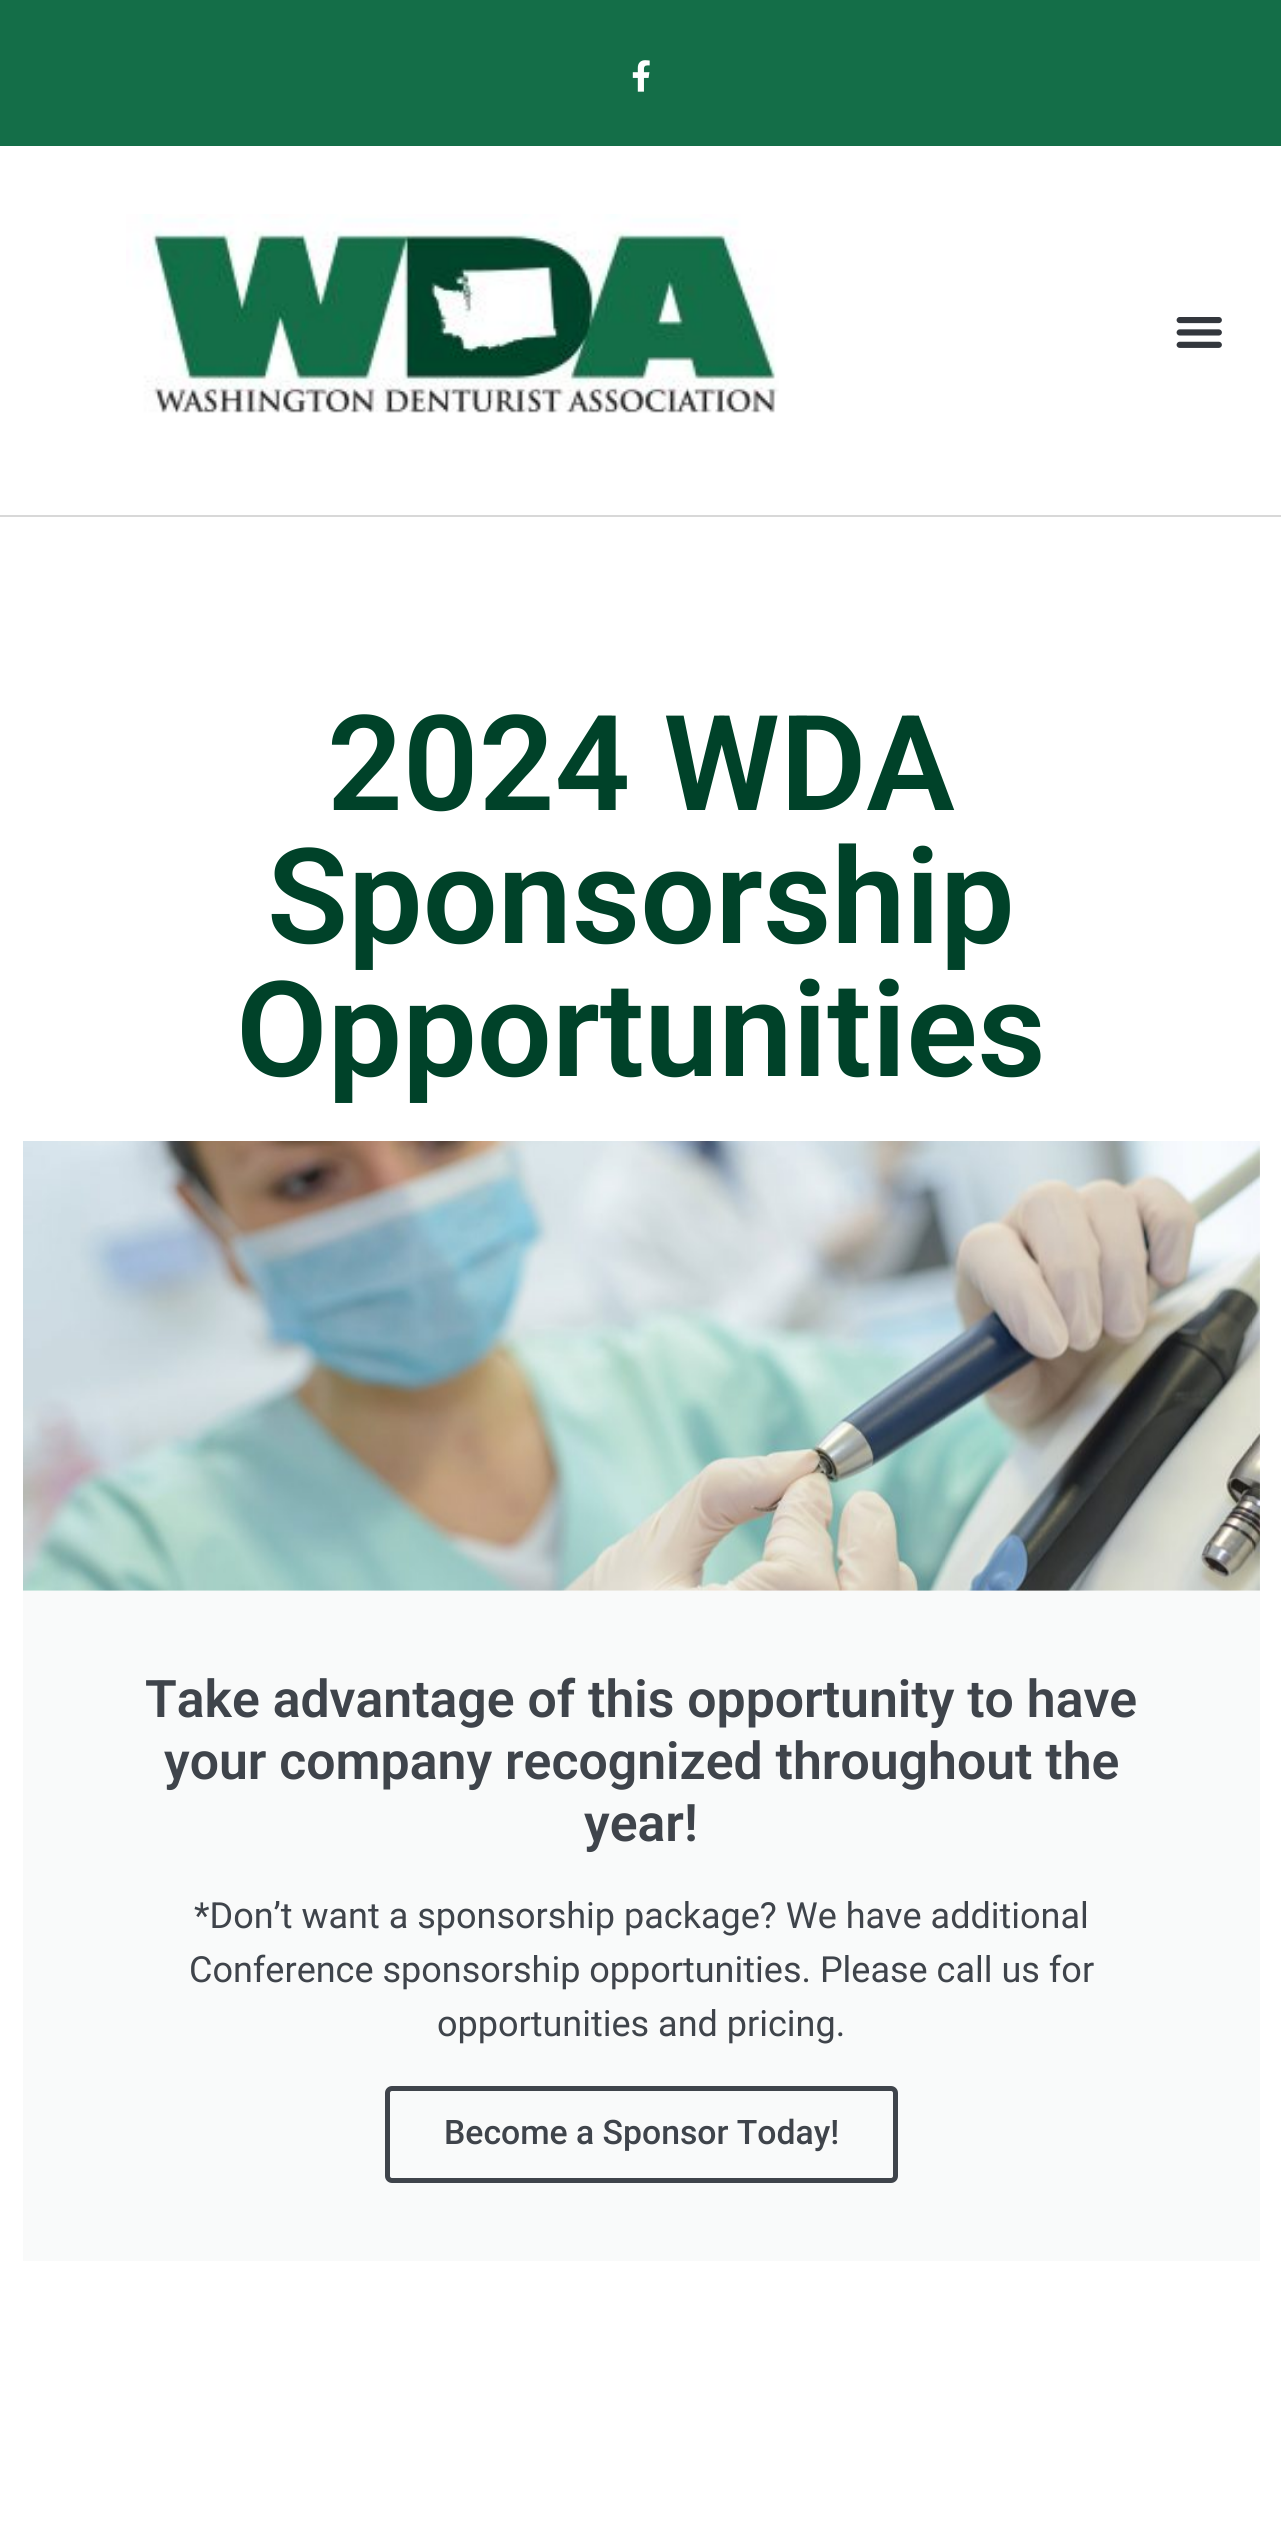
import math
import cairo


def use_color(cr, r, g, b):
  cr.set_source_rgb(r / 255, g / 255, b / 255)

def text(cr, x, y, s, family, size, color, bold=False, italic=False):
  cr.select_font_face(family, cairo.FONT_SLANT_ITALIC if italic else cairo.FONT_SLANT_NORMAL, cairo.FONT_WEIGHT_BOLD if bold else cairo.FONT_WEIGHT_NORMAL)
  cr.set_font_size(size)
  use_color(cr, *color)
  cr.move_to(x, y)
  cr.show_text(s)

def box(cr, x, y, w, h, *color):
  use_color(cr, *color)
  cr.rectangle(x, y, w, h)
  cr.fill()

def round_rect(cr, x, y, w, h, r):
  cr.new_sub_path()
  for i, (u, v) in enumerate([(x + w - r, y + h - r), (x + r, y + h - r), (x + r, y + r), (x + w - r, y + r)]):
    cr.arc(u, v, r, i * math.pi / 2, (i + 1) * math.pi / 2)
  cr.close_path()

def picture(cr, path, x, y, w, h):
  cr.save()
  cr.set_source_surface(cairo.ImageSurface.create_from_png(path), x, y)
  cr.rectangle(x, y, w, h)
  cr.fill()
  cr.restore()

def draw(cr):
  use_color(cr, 255, 255, 255)
  cr.paint()
  box(cr, 0, 0, 1281, 146, 20, 110, 72)
  picture(cr, "img_01.png", 632, 60, 18, 32)
  box(cr, 0, 515, 1281, 2, 216, 216, 216)
  picture(cr, "img_02.png", 126, 214, 653, 199)
  picture(cr, "img_03.png", 1176, 317, 46, 31)
  picture(cr, "img_04.png", 23, 1141, 1237, 450)
  box(cr, 23, 1591, 1237, 670, 249, 250, 250)
  round_rect(cr, 387.5, 2088.5, 508, 92, 4.5)
  use_color(cr, 63, 68, 75)
  cr.set_line_width(5)
  cr.stroke()
  text(cr, 327, 810, "2024 WDA", "Roboto SemiBold", 132.75, (0, 66, 41))
  text(cr, 267, 943, "Sponsorship", "Roboto SemiBold", 132.75, (0, 66, 41))
  text(cr, 236, 1076, "Opportunities", "Roboto SemiBold", 132.75, (0, 66, 41))
  text(cr, 145, 1717, "Take advantage of this opportunity to have", "Roboto SemiBold", 51.75, (63, 68, 75))
  text(cr, 164, 1779, "your company recognized throughout the", "Roboto SemiBold", 51.75, (63, 68, 75))
  text(cr, 584, 1841, "year!", "Roboto SemiBold", 51.75, (63, 68, 75))
  text(cr, 194, 1928, "*Don’t want a sponsorship package? We have additional", "Roboto", 36, (63, 68, 75))
  text(cr, 189, 1982, "Conference sponsorship opportunities. Please call us for", "Roboto", 36, (63, 68, 75))
  text(cr, 437, 2036, "opportunities and pricing.", "Roboto", 36, (63, 68, 75))
  text(cr, 444, 2144, "Become a Sponsor Today!", "Roboto Medium", 33.75, (63, 68, 75))


surface = cairo.ImageSurface(cairo.FORMAT_RGB24, 1281, 2533)
cr = cairo.Context(surface)
options = cairo.FontOptions()
options.set_hint_metrics(cairo.HINT_METRICS_OFF)
options.set_hint_style(cairo.HINT_STYLE_NONE)
cr.set_font_options(options)
cr.set_miter_limit(4)
draw(cr)
surface.write_to_png("out.png")
